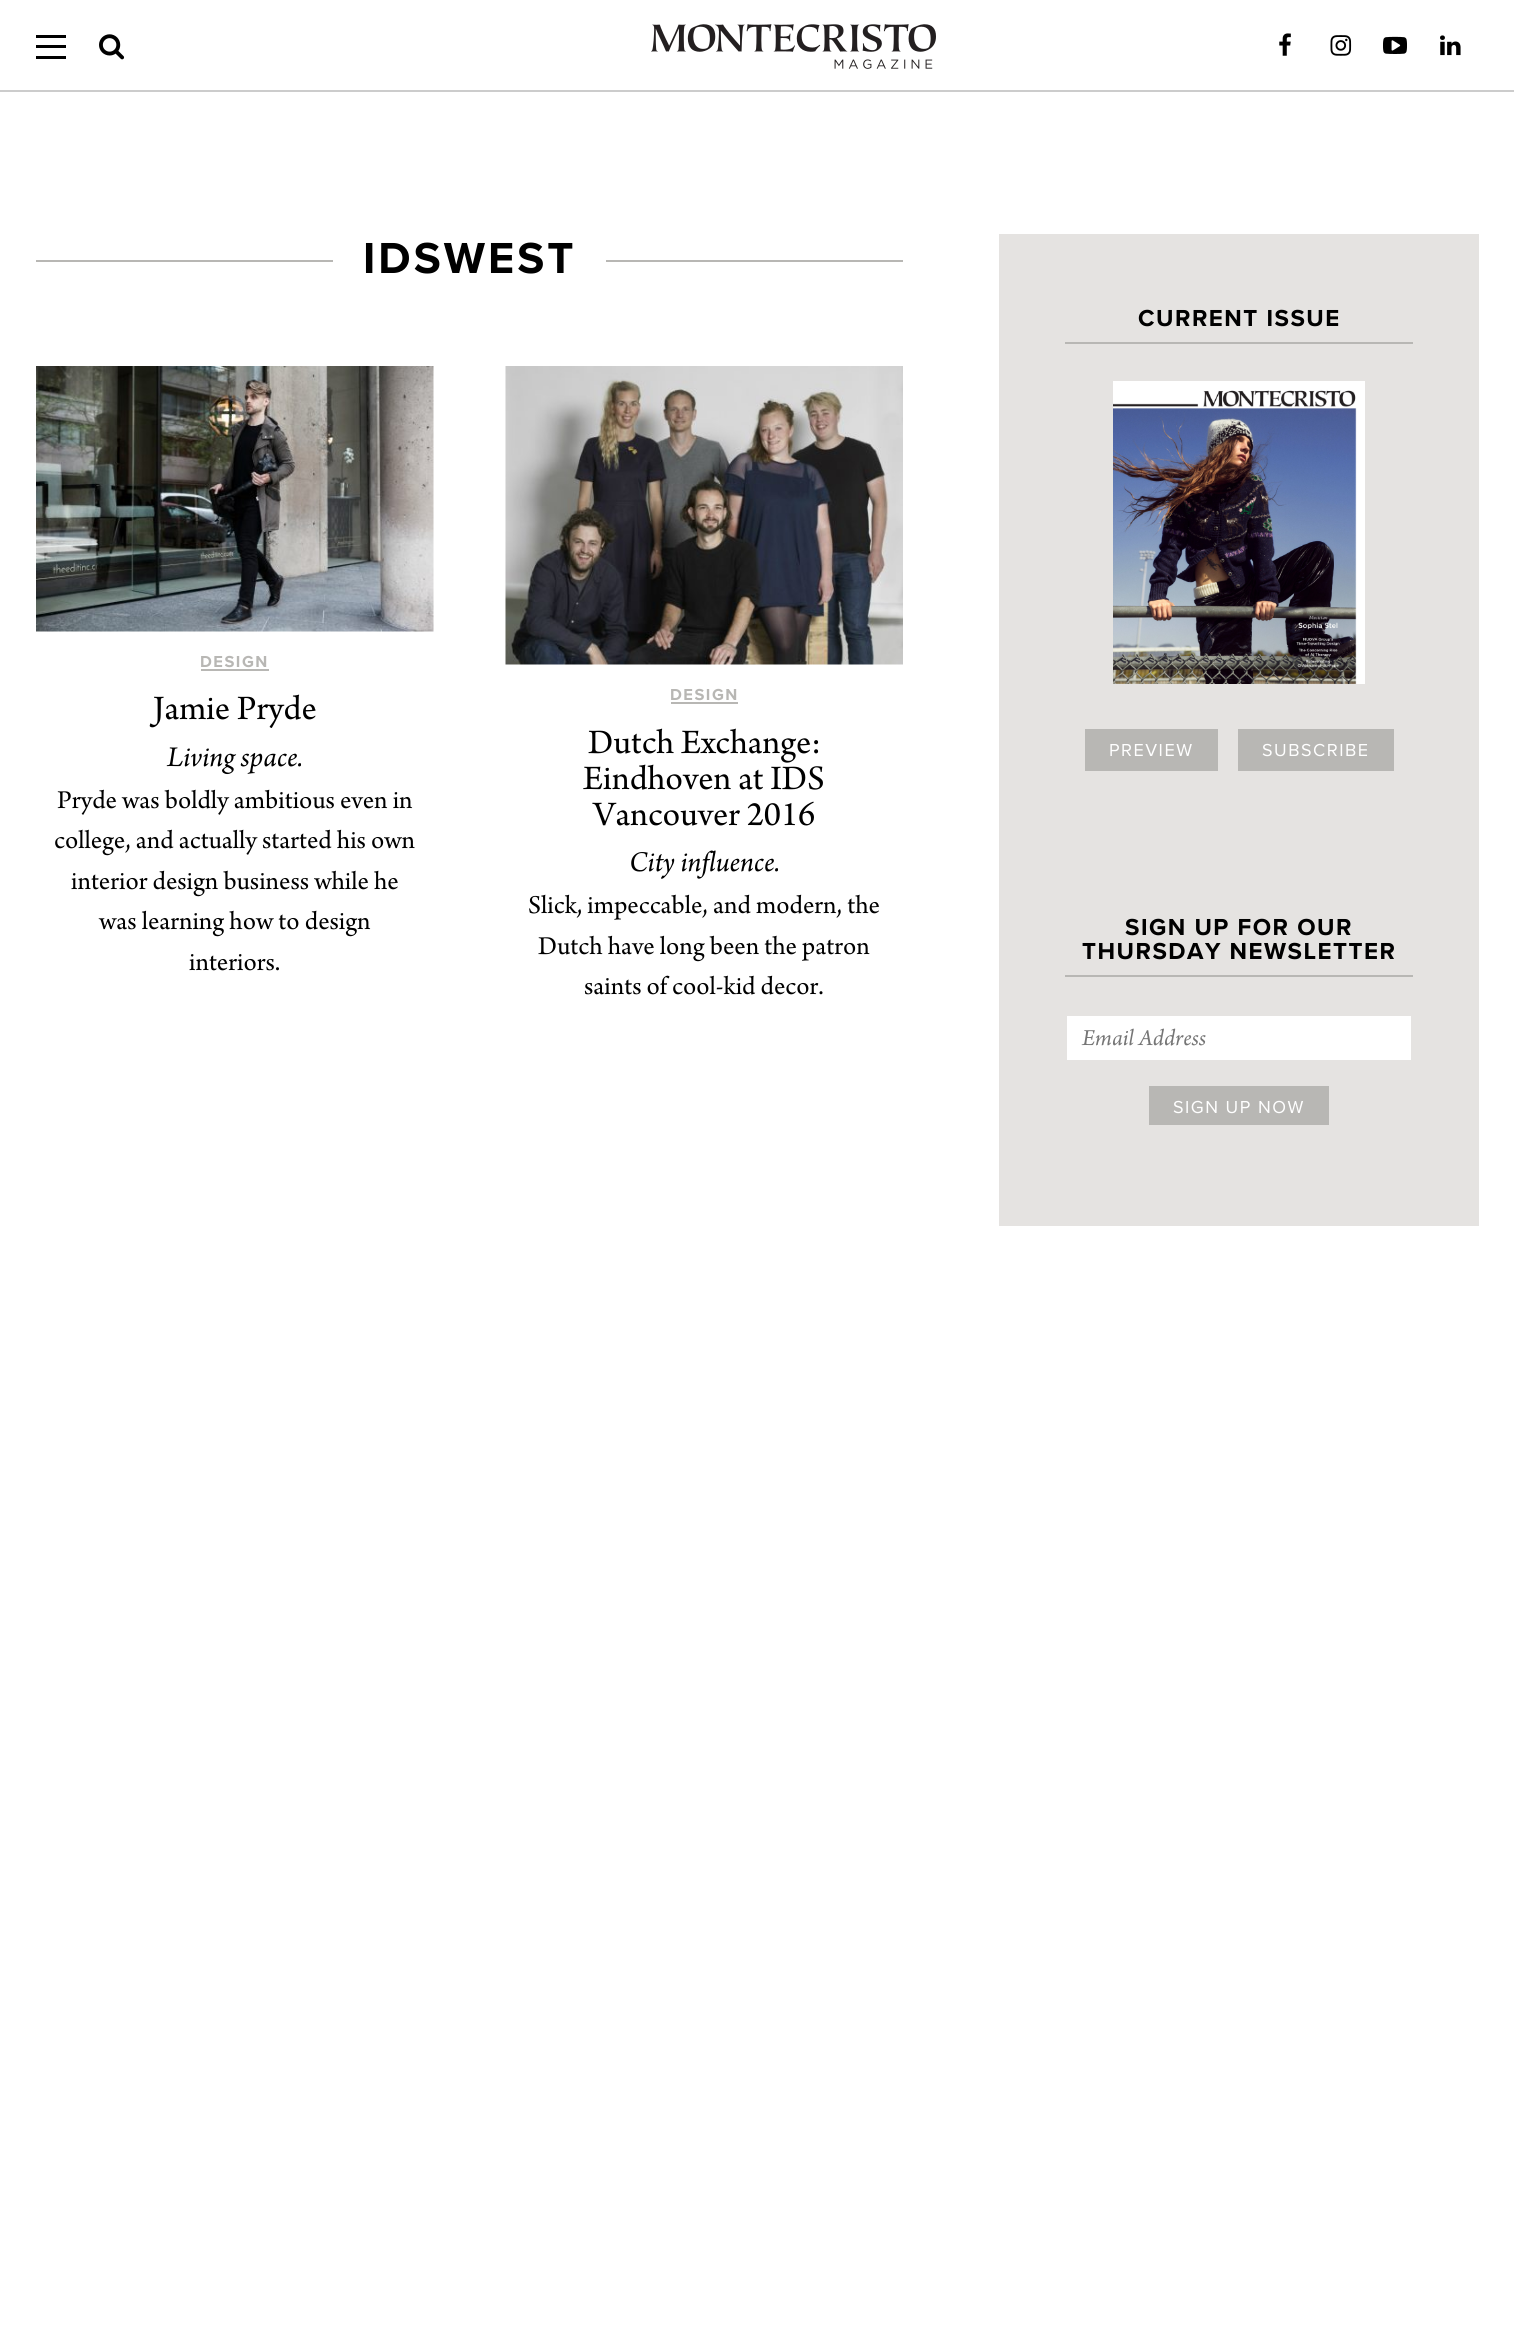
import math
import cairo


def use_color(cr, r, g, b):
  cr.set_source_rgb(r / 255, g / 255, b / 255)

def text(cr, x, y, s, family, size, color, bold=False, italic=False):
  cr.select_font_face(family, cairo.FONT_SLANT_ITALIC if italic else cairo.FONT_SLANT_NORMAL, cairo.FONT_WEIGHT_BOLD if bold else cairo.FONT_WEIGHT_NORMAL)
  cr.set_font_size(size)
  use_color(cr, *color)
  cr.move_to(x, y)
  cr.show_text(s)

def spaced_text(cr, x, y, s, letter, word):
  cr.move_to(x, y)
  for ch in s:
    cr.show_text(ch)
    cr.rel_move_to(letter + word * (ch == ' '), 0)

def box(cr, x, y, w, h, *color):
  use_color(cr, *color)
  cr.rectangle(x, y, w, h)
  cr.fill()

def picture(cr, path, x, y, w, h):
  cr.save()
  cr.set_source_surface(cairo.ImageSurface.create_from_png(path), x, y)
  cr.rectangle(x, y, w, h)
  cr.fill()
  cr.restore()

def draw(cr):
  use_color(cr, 255, 255, 255)
  cr.paint()
  box(cr, 0, 90, 1514, 2, 204, 204, 204)
  picture(cr, "img_01.png", 651, 24, 285, 45)
  box(cr, 36, 35, 30, 3, 0, 0, 0)
  box(cr, 36, 45, 30, 3, 0, 0, 0)
  box(cr, 36, 56, 30, 3, 0, 0, 0)
  picture(cr, "img_02.png", 99, 34, 26, 26)
  picture(cr, "img_03.png", 1279, 33, 12, 23)
  picture(cr, "img_04.png", 1330, 35, 22, 21)
  picture(cr, "img_05.png", 1383, 36, 24, 18)
  picture(cr, "img_06.png", 1440, 35, 21, 21)
  box(cr, 36, 260, 867, 2, 184, 183, 180)
  box(cr, 333, 260, 273, 2, 255, 255, 255)
  picture(cr, "img_07.png", 36, 366, 398, 266)
  box(cr, 201, 669, 68, 2, 184, 183, 180)
  picture(cr, "img_08.png", 505, 366, 398, 299)
  box(cr, 671, 702, 67, 2, 184, 183, 180)
  box(cr, 999, 234, 480, 992, 229, 227, 225)
  box(cr, 1065, 342, 348, 2, 184, 183, 180)
  picture(cr, "img_09.png", 1113, 381, 252, 303)
  box(cr, 1085, 729, 133, 42, 184, 183, 180)
  box(cr, 1238, 729, 156, 42, 184, 183, 180)
  box(cr, 1065, 975, 348, 2, 184, 183, 180)
  box(cr, 1067, 1016, 344, 44, 255, 255, 255)
  box(cr, 1149, 1086, 180, 39, 184, 183, 180)
  cr.select_font_face("Proxima Nova", cairo.FONT_SLANT_NORMAL, cairo.FONT_WEIGHT_BOLD)
  cr.set_font_size(45)
  use_color(cr, 0, 0, 0)
  spaced_text(cr, 363, 273, "IDSWEST", 3, 0)
  cr.set_font_size(16.5)
  use_color(cr, 184, 183, 180)
  spaced_text(cr, 200, 667, "DESIGN", 1.5, 0)
  text(cr, 153, 719, "Jamie Pryde", "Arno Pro", 36, (0, 0, 0))
  text(cr, 167, 766, "Living space.", "Arno Pro", 30, (0, 0, 0), italic=True)
  text(cr, 57, 808, "Pryde was boldly ambitious even in", "Arno Pro", 27, (0, 0, 0))
  text(cr, 54, 848, "college, and actually started his own", "Arno Pro", 27, (0, 0, 0))
  text(cr, 71, 889, "interior design business while he", "Arno Pro", 27, (0, 0, 0))
  text(cr, 99, 929, "was learning how to design", "Arno Pro", 27, (0, 0, 0))
  text(cr, 189, 970, "interiors.", "Arno Pro", 27, (0, 0, 0))
  cr.select_font_face("Proxima Nova", cairo.FONT_SLANT_NORMAL, cairo.FONT_WEIGHT_BOLD)
  cr.set_font_size(16.5)
  use_color(cr, 184, 183, 180)
  spaced_text(cr, 670, 700, "DESIGN", 1.5, 0)
  text(cr, 588, 753, "Dutch Exchange:", "Arno Pro", 36, (0, 0, 0))
  text(cr, 583, 789, "Eindhoven at IDS", "Arno Pro", 36, (0, 0, 0))
  text(cr, 593, 825, "Vancouver 2016", "Arno Pro", 36, (0, 0, 0))
  text(cr, 629, 871, "City influence.", "Arno Pro", 30, (0, 0, 0), italic=True)
  text(cr, 528, 913, "Slick, impeccable, and modern, the", "Arno Pro", 27, (0, 0, 0))
  text(cr, 538, 954, "Dutch have long been the patron", "Arno Pro", 27, (0, 0, 0))
  text(cr, 584, 994, "saints of cool-kid decor.", "Arno Pro", 27, (0, 0, 0))
  cr.select_font_face("Proxima Nova", cairo.FONT_SLANT_NORMAL, cairo.FONT_WEIGHT_BOLD)
  cr.set_font_size(24)
  spaced_text(cr, 1138, 326, "CURRENT ISSUE", 1.5, 0)
  cr.select_font_face("Proxima Nova")
  cr.set_font_size(18)
  use_color(cr, 255, 255, 255)
  spaced_text(cr, 1109, 756, "PREVIEW", 1.5, 0)
  spaced_text(cr, 1262, 756, "SUBSCRIBE", 1.5, 0)
  cr.select_font_face("Proxima Nova", cairo.FONT_SLANT_NORMAL, cairo.FONT_WEIGHT_BOLD)
  cr.set_font_size(24)
  use_color(cr, 0, 0, 0)
  spaced_text(cr, 1125, 935, "SIGN UP FOR OUR", 1.5, 0)
  spaced_text(cr, 1082, 959, "THURSDAY NEWSLETTER", 1.5, 0)
  text(cr, 1082, 1045, "Email Address", "Arno Pro", 24, (117, 117, 117), italic=True)
  cr.select_font_face("Proxima Nova")
  cr.set_font_size(18)
  use_color(cr, 255, 255, 255)
  spaced_text(cr, 1173, 1113, "SIGN UP NOW", 1.5, 0)


surface = cairo.ImageSurface(cairo.FORMAT_RGB24, 1514, 2333)
cr = cairo.Context(surface)
options = cairo.FontOptions()
options.set_hint_metrics(cairo.HINT_METRICS_OFF)
options.set_hint_style(cairo.HINT_STYLE_NONE)
cr.set_font_options(options)
cr.set_miter_limit(4)
draw(cr)
surface.write_to_png("out.png")
